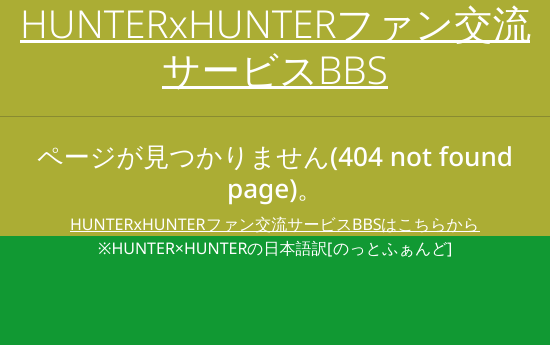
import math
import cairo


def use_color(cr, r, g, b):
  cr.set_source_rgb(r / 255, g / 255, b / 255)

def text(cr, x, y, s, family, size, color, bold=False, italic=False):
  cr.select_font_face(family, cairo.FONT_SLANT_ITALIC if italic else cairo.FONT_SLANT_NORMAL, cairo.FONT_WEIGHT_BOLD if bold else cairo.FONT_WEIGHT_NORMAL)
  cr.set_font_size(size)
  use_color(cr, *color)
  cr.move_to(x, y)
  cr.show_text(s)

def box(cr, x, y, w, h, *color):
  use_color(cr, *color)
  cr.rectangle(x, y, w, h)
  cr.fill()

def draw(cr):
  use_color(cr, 17, 153, 51)
  cr.paint()
  box(cr, 0, 0, 550, 236, 171, 173, 52)
  box(cr, 20, 40, 510, 3, 255, 255, 255)
  box(cr, 162, 86, 226, 3, 255, 255, 255)
  box(cr, 0, 116, 550, 1, 137, 139, 49)
  box(cr, 70, 231, 410, 1, 255, 255, 255)
  text(cr, 20, 38, "HUNTERxHUNTER", "Noto Sans Light", 38.5, (255, 255, 255))
  text(cr, 336, 38, "ファン交流", "WenQuanYi Zen Hei Medium", 38.5, (255, 255, 255))
  text(cr, 162, 84, "サービス", "WenQuanYi Zen Hei Medium", 38.5, (255, 255, 255))
  text(cr, 318, 84, "BBS", "Noto Sans Light", 38.5, (255, 255, 255))
  text(cr, 37, 166, "ページが見つかりません", "WenQuanYi Zen Hei Medium", 26.1, (255, 255, 255))
  text(cr, 330, 166, "(404 not found", "Noto Sans Medium", 26.1, (255, 255, 255))
  text(cr, 227, 198, "page)", "Noto Sans Medium", 26.1, (255, 255, 255))
  text(cr, 297, 198, "。", "WenQuanYi Zen Hei Medium", 26.1, (255, 255, 255))
  text(cr, 70, 230, "HUNTERxHUNTER", "Noto Sans", 16, (255, 255, 255))
  text(cr, 206, 230, "ファン交流サービス", "WenQuanYi Zen Hei Medium", 16, (255, 255, 255))
  text(cr, 352, 230, "BBS", "Noto Sans", 16, (255, 255, 255))
  text(cr, 381, 230, "はこちらから", "WenQuanYi Zen Hei Medium", 16, (255, 255, 255))
  text(cr, 98, 254, "※HUNTER×HUNTER", "Noto Sans", 16, (255, 255, 255))
  text(cr, 247, 254, "の日本語訳", "WenQuanYi Zen Hei Medium", 16, (255, 255, 255))
  text(cr, 327, 254, "[", "Noto Sans", 16, (255, 255, 255))
  text(cr, 333, 254, "のっとふぁんど", "WenQuanYi Zen Hei Medium", 16, (255, 255, 255))
  text(cr, 447, 254, "]", "Noto Sans", 16, (255, 255, 255))


surface = cairo.ImageSurface(cairo.FORMAT_RGB24, 550, 345)
cr = cairo.Context(surface)
options = cairo.FontOptions()
options.set_hint_metrics(cairo.HINT_METRICS_OFF)
options.set_hint_style(cairo.HINT_STYLE_NONE)
cr.set_font_options(options)
cr.set_miter_limit(4)
draw(cr)
surface.write_to_png("out.png")
